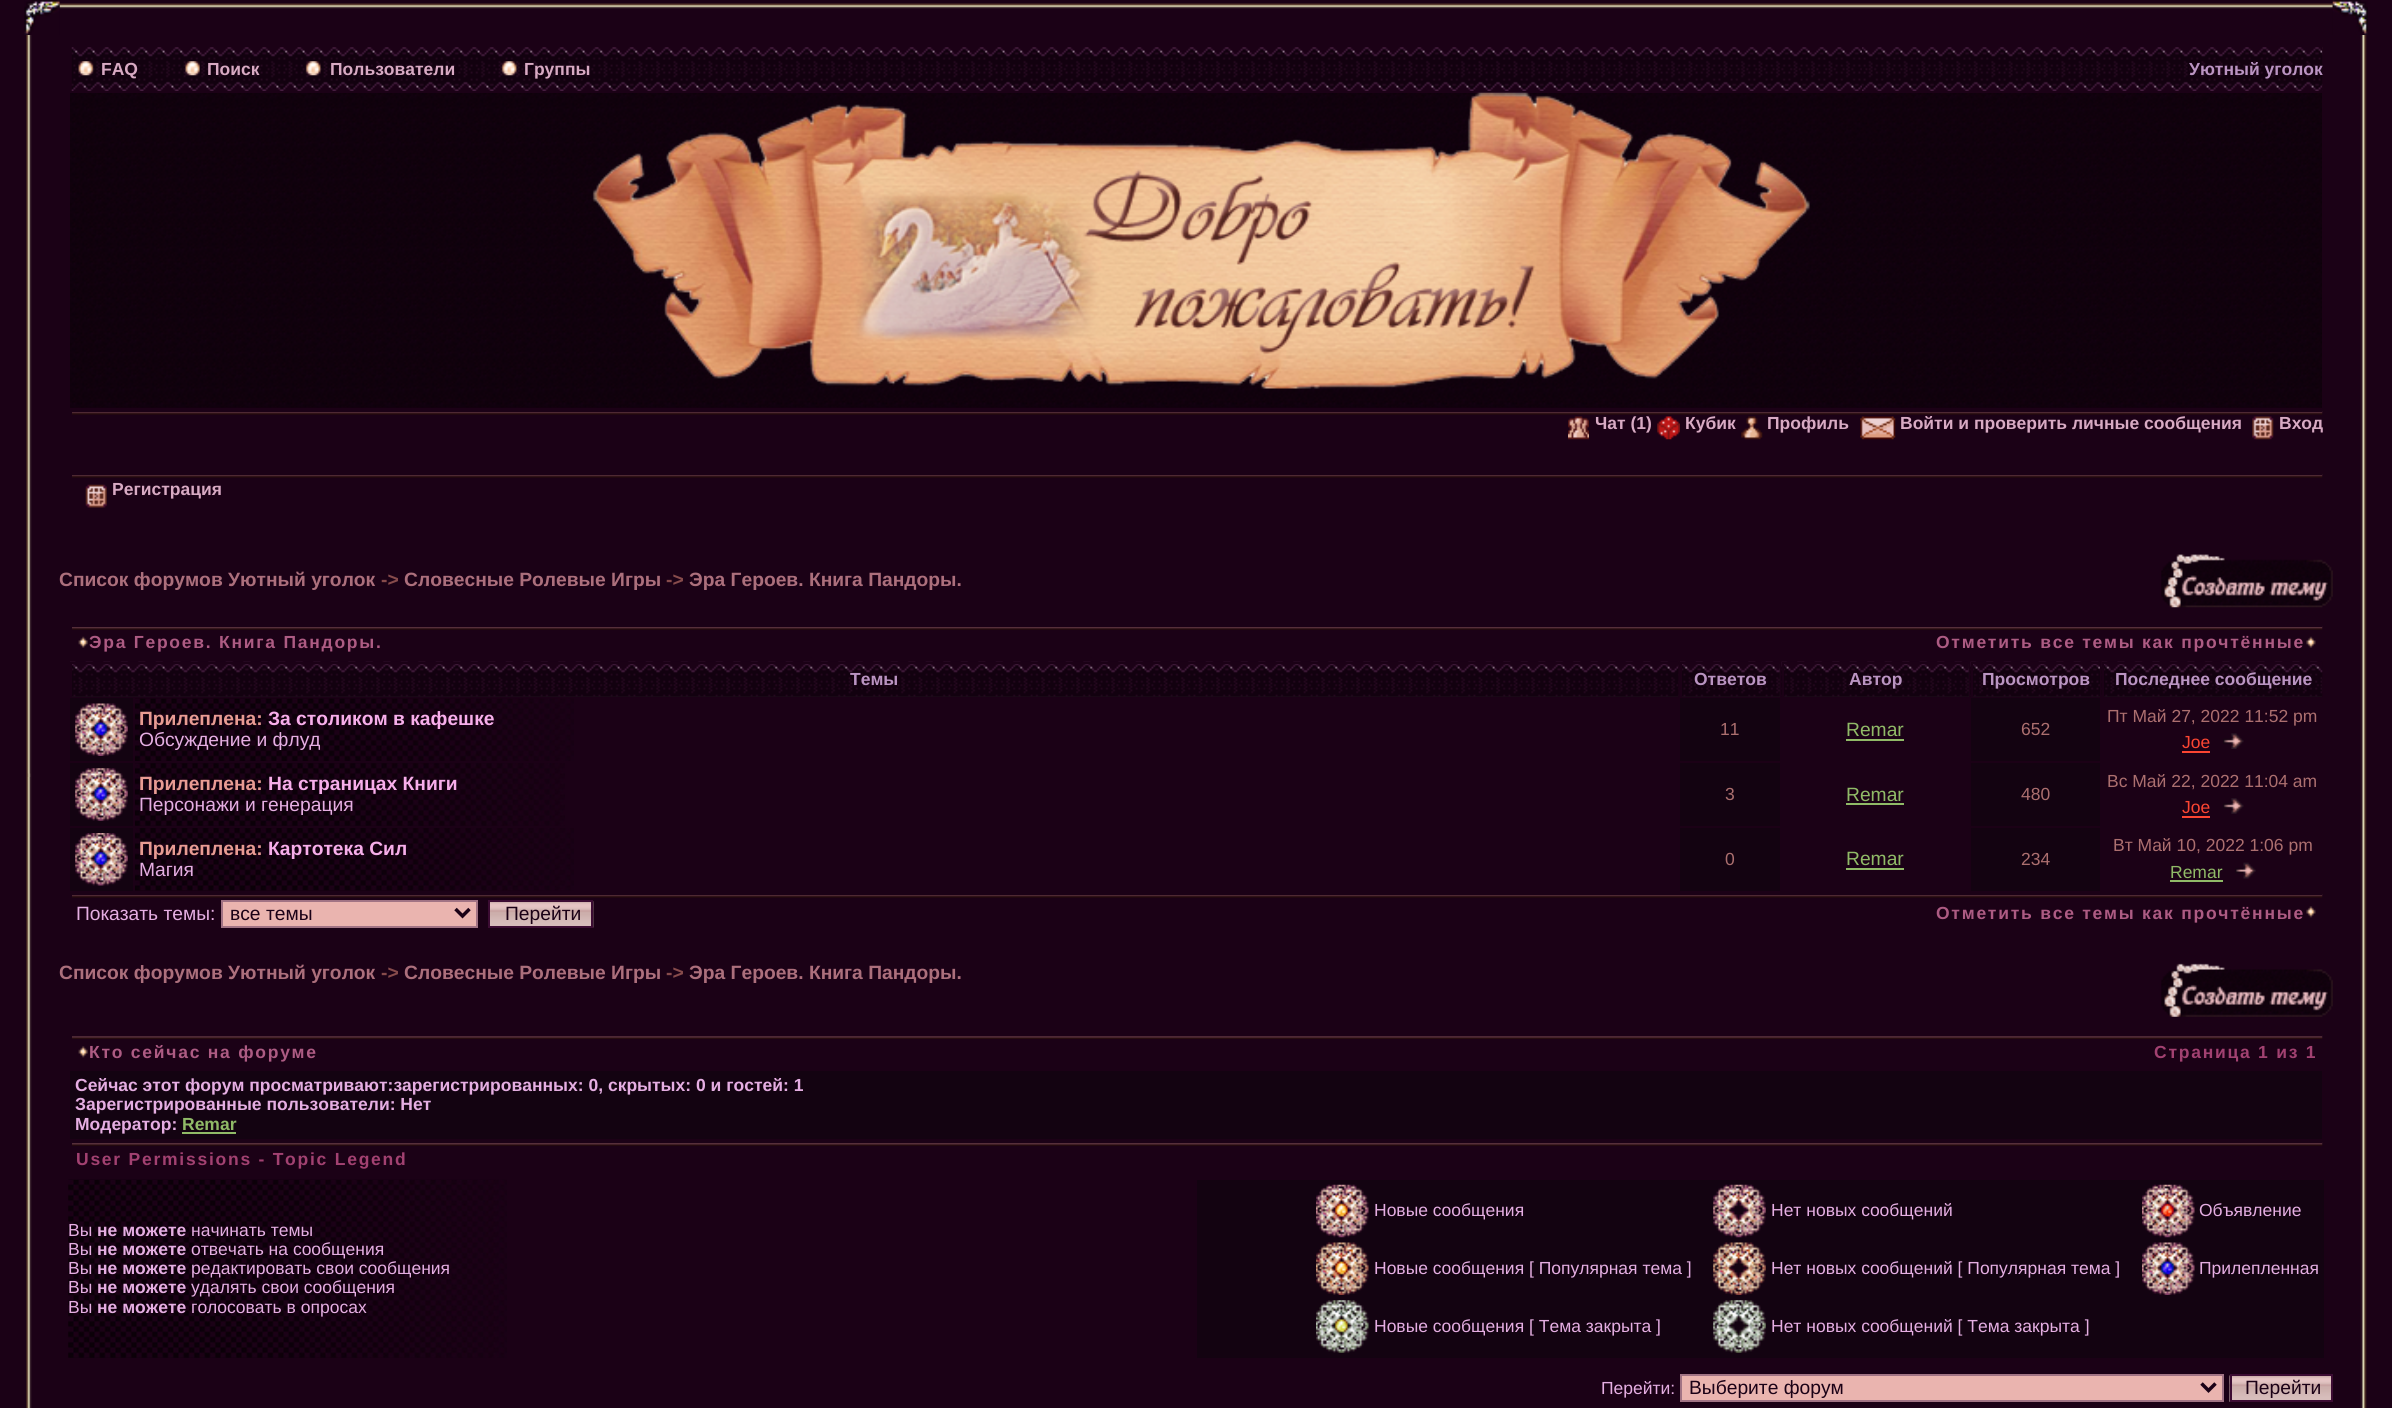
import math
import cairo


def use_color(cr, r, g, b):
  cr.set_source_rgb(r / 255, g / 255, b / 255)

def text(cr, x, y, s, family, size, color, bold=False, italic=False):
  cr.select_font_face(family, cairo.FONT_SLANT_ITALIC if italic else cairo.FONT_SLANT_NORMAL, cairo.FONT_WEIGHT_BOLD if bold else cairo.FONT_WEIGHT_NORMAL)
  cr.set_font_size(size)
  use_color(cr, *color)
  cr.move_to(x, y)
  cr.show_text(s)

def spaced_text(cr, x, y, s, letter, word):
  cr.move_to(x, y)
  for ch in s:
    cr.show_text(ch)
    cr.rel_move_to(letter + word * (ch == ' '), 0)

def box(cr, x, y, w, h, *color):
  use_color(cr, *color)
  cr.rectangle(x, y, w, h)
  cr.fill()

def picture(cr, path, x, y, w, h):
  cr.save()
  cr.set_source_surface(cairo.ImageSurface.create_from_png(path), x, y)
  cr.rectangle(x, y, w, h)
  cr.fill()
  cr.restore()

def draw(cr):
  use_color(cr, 27, 1, 22)
  cr.paint()
  picture(cr, "img_02.png", 59, 3, 2274, 6)
  picture(cr, "img_01.png", 24, 0, 36, 35)
  picture(cr, "img_03.png", 2332, 0, 36, 35)
  picture(cr, "img_04.png", 26, 35, 6, 1373)
  picture(cr, "img_05.png", 27, 773, 4, 4)
  picture(cr, "img_06.png", 2322, 46, 1, 45)
  picture(cr, "img_07.png", 71, 47, 1791, 44)
  picture(cr, "img_08.png", 78, 61, 16, 15)
  picture(cr, "img_09.png", 185, 61, 15, 15)
  picture(cr, "img_10.png", 305, 61, 16, 15)
  picture(cr, "img_11.png", 501, 61, 16, 15)
  picture(cr, "img_12.png", 1862, 47, 461, 44)
  picture(cr, "img_13.png", 70, 93, 2252, 315)
  picture(cr, "img_14.png", 592, 92, 1218, 297)
  picture(cr, "img_15.png", 72, 411, 2251, 4)
  box(cr, 70, 411, 2252, 1, 27, 1, 22)
  picture(cr, "img_16.png", 1568, 416, 21, 24)
  picture(cr, "img_17.png", 1657, 416, 23, 24)
  picture(cr, "img_18.png", 1741, 416, 22, 24)
  picture(cr, "img_19.png", 1860, 416, 36, 24)
  picture(cr, "img_20.png", 2252, 416, 22, 24)
  picture(cr, "img_21.png", 72, 473, 2251, 5)
  box(cr, 70, 473, 2252, 2, 27, 1, 22)
  picture(cr, "img_22.png", 85, 484, 22, 24)
  picture(cr, "img_23.png", 2161, 554, 172, 54)
  picture(cr, "img_24.png", 72, 626, 2251, 4)
  box(cr, 70, 626, 2252, 1, 27, 1, 22)
  picture(cr, "img_25.png", 78, 636, 10, 12)
  picture(cr, "img_26.png", 2306, 636, 10, 12)
  box(cr, 72, 696, 1606, 1, 31, 16, 28)
  picture(cr, "img_27.png", 70, 661, 1609, 36)
  box(cr, 70, 662, 1597, 2, 27, 1, 22)
  box(cr, 70, 662, 2, 35, 27, 1, 22)
  box(cr, 1682, 664, 98, 33, 31, 16, 28)
  picture(cr, "img_28.png", 1680, 661, 100, 36)
  box(cr, 1680, 662, 100, 2, 27, 1, 22)
  box(cr, 1680, 662, 2, 35, 27, 1, 22)
  box(cr, 1784, 664, 185, 33, 31, 16, 28)
  picture(cr, "img_29.png", 1781, 661, 188, 36)
  box(cr, 1782, 662, 187, 2, 27, 1, 22)
  box(cr, 1782, 662, 2, 35, 27, 1, 22)
  box(cr, 1973, 696, 127, 1, 31, 16, 28)
  picture(cr, "img_30.png", 1970, 661, 130, 36)
  box(cr, 1971, 662, 129, 2, 27, 1, 22)
  box(cr, 1971, 662, 2, 35, 27, 1, 22)
  box(cr, 2104, 696, 218, 1, 31, 16, 28)
  picture(cr, "img_31.png", 2101, 661, 222, 36)
  box(cr, 2102, 662, 220, 2, 27, 1, 22)
  box(cr, 2102, 662, 2, 35, 27, 1, 22)
  box(cr, 70, 698, 63, 63, 19, 3, 17)
  picture(cr, "img_32.png", 75, 703, 53, 53)
  picture(cr, "img_33.png", 135, 698, 439, 63)
  box(cr, 1680, 698, 100, 63, 19, 3, 17)
  box(cr, 1846, 739, 58, 2, 144, 186, 103)
  box(cr, 1971, 698, 129, 63, 19, 3, 17)
  box(cr, 2182, 751, 28, 2, 252, 69, 50)
  picture(cr, "img_34.png", 2223, 733, 21, 16)
  box(cr, 70, 763, 63, 63, 19, 3, 17)
  picture(cr, "img_35.png", 75, 768, 53, 53)
  picture(cr, "img_36.png", 135, 763, 430, 63)
  box(cr, 1680, 763, 100, 63, 19, 3, 17)
  box(cr, 1846, 803, 58, 2, 144, 186, 103)
  box(cr, 1971, 763, 129, 63, 19, 3, 17)
  box(cr, 2182, 816, 28, 2, 252, 69, 50)
  picture(cr, "img_37.png", 2223, 798, 21, 16)
  box(cr, 70, 828, 63, 63, 19, 3, 17)
  picture(cr, "img_38.png", 75, 833, 53, 53)
  picture(cr, "img_39.png", 135, 828, 439, 63)
  box(cr, 1680, 828, 100, 63, 19, 3, 17)
  box(cr, 1846, 868, 58, 2, 144, 186, 103)
  box(cr, 1971, 828, 129, 63, 19, 3, 17)
  box(cr, 2170, 880, 53, 2, 144, 186, 103)
  picture(cr, "img_40.png", 2235, 862, 21, 17)
  picture(cr, "img_21.png", 72, 893, 2251, 5)
  box(cr, 70, 893, 2252, 2, 27, 1, 22)
  use_color(cr, 234, 180, 175)
  cr.rectangle(222, 901, 255, 26)
  cr.fill_preserve()
  use_color(cr, 161, 115, 132)
  cr.stroke()
  cr.new_path()
  cr.move_to(455.5, 909)
  cr.line_to(462.5, 916)
  cr.line_to(469.5, 909)
  use_color(cr, 27, 1, 22)
  cr.set_line_width(3.5)
  cr.stroke()
  picture(cr, "img_41.png", 490, 901, 104, 27)
  cr.rectangle(489, 901, 103, 26)
  use_color(cr, 60, 12, 51)
  cr.set_line_width(2)
  cr.stroke()
  picture(cr, "img_42.png", 2306, 906, 10, 12)
  picture(cr, "img_43.png", 2161, 963, 172, 54)
  picture(cr, "img_44.png", 72, 1035, 2251, 4)
  box(cr, 70, 1035, 2252, 1, 27, 1, 22)
  picture(cr, "img_45.png", 78, 1046, 10, 12)
  box(cr, 70, 1071, 2252, 68, 19, 3, 17)
  box(cr, 182, 1132, 54, 2, 144, 186, 103)
  picture(cr, "img_46.png", 72, 1142, 2251, 4)
  box(cr, 70, 1142, 2252, 1, 27, 1, 22)
  picture(cr, "img_47.png", 68, 1179, 439, 179)
  box(cr, 1197, 1180, 1127, 178, 19, 3, 17)
  picture(cr, "img_48.png", 1316, 1184, 53, 54)
  picture(cr, "img_49.png", 1713, 1184, 53, 54)
  picture(cr, "img_50.png", 2142, 1184, 53, 54)
  picture(cr, "img_51.png", 1316, 1242, 53, 53)
  picture(cr, "img_52.png", 1713, 1242, 53, 53)
  picture(cr, "img_53.png", 2142, 1242, 53, 53)
  picture(cr, "img_54.png", 1316, 1300, 53, 53)
  picture(cr, "img_55.png", 1713, 1300, 53, 53)
  use_color(cr, 234, 180, 175)
  cr.rectangle(1681, 1375, 542, 26)
  cr.fill_preserve()
  use_color(cr, 161, 115, 132)
  cr.stroke()
  cr.new_path()
  cr.move_to(2201.5, 1383.5)
  cr.line_to(2208.5, 1390.5)
  cr.line_to(2215.5, 1383.5)
  use_color(cr, 27, 1, 22)
  cr.set_line_width(3.5)
  cr.stroke()
  picture(cr, "img_56.png", 2229, 1375, 102, 27)
  cr.rectangle(2231, 1375, 101, 26)
  use_color(cr, 60, 12, 51)
  cr.set_line_width(2)
  cr.stroke()
  picture(cr, "img_57.png", 2360, 35, 7, 1373)
  text(cr, 101, 75, "FAQ", "Liberation Sans", 17.5, (216, 170, 195), bold=True)
  text(cr, 207, 75, "Поиск", "Liberation Sans", 17.5, (216, 170, 195), bold=True)
  text(cr, 330, 75, "Пользователи", "Liberation Sans", 17.5, (216, 170, 195), bold=True)
  text(cr, 524, 75, "Группы", "Liberation Sans", 17.5, (216, 170, 195), bold=True)
  text(cr, 2189, 75, "Уютный уголок", "Liberation Sans", 17.5, (186, 148, 194), bold=True)
  text(cr, 1595, 429, "Чат (1)", "Liberation Sans", 17.5, (216, 170, 195), bold=True)
  text(cr, 1685, 429, "Кубик", "Liberation Sans", 17.5, (216, 170, 195), bold=True)
  text(cr, 1767, 429, "Профиль", "Liberation Sans", 17.5, (216, 170, 195), bold=True)
  text(cr, 1900, 429, "Войти и проверить личные сообщения", "Liberation Sans", 17.5, (216, 170, 195), bold=True)
  text(cr, 2279, 429, "Вход", "Liberation Sans", 17.5, (216, 170, 195), bold=True)
  text(cr, 112, 495, "Регистрация", "Liberation Sans", 17.5, (216, 170, 195), bold=True)
  text(cr, 59, 586, "Список форумов Уютный уголок", "Liberation Sans", 19.25, (172, 111, 124), bold=True)
  text(cr, 381, 586, "->", "Liberation Sans", 19.25, (135, 75, 75), bold=True)
  text(cr, 404, 586, "Словесные Ролевые Игры", "Liberation Sans", 19.25, (172, 111, 124), bold=True)
  text(cr, 666, 586, "->", "Liberation Sans", 19.25, (135, 75, 75), bold=True)
  text(cr, 689, 586, "Эра Героев. Книга Пандоры.", "Liberation Sans", 19.25, (172, 111, 124), bold=True)
  cr.set_font_size(17.5)
  use_color(cr, 173, 91, 131)
  spaced_text(cr, 89, 648, "Эра Героев. Книга Пандоры.", 1.75, 0)
  spaced_text(cr, 1936, 648, "Отметить все темы как прочтённые", 1.75, 0)
  text(cr, 850, 685, "Темы", "Liberation Sans", 17.5, (186, 148, 194), bold=True)
  text(cr, 1694, 685, "Ответов", "Liberation Sans", 17.5, (186, 148, 194), bold=True)
  text(cr, 1849, 685, "Автор", "Liberation Sans", 17.5, (186, 148, 194), bold=True)
  text(cr, 1982, 685, "Просмотров", "Liberation Sans", 17.5, (186, 148, 194), bold=True)
  text(cr, 2115, 685, "Последнее сообщение", "Liberation Sans", 17.5, (186, 148, 194), bold=True)
  text(cr, 139, 725, "Прилеплена:", "Liberation Sans", 19.25, (232, 155, 147), bold=True)
  text(cr, 268, 725, "За столиком в кафешке", "Liberation Sans", 19.25, (247, 174, 234), bold=True)
  text(cr, 139, 746, "Обсуждение и флуд", "Liberation Sans", 19.25, (229, 174, 226))
  text(cr, 1720, 735, "11", "Liberation Sans", 17.5, (172, 111, 111))
  text(cr, 1846, 736, "Remar", "Liberation Sans", 19.25, (144, 186, 103))
  text(cr, 2021, 735, "652", "Liberation Sans", 17.5, (172, 111, 111))
  text(cr, 2107, 722, "Пт Май 27, 2022 11:52 pm", "Liberation Sans", 17.5, (172, 111, 111))
  text(cr, 2182, 748, "Joe", "Liberation Sans", 17.5, (252, 69, 50))
  text(cr, 139, 790, "Прилеплена:", "Liberation Sans", 19.25, (232, 155, 147), bold=True)
  text(cr, 268, 790, "На страницах Книги", "Liberation Sans", 19.25, (247, 174, 234), bold=True)
  text(cr, 139, 811, "Персонажи и генерация", "Liberation Sans", 19.25, (229, 174, 226))
  text(cr, 1725, 800, "3", "Liberation Sans", 17.5, (172, 111, 111))
  text(cr, 1846, 801, "Remar", "Liberation Sans", 19.25, (144, 186, 103))
  text(cr, 2021, 800, "480", "Liberation Sans", 17.5, (172, 111, 111))
  text(cr, 2107, 787, "Вс Май 22, 2022 11:04 am", "Liberation Sans", 17.5, (172, 111, 111))
  text(cr, 2182, 813, "Joe", "Liberation Sans", 17.5, (252, 69, 50))
  text(cr, 139, 855, "Прилеплена:", "Liberation Sans", 19.25, (232, 155, 147), bold=True)
  text(cr, 268, 855, "Картотека Сил", "Liberation Sans", 19.25, (247, 174, 234), bold=True)
  text(cr, 139, 876, "Магия", "Liberation Sans", 19.25, (229, 174, 226))
  text(cr, 1725, 865, "0", "Liberation Sans", 17.5, (172, 111, 111))
  text(cr, 1846, 865, "Remar", "Liberation Sans", 19.25, (144, 186, 103))
  text(cr, 2021, 865, "234", "Liberation Sans", 17.5, (172, 111, 111))
  text(cr, 2113, 851, "Вт Май 10, 2022 1:06 pm", "Liberation Sans", 17.5, (172, 111, 111))
  text(cr, 2170, 878, "Remar", "Liberation Sans", 17.5, (144, 186, 103))
  text(cr, 76, 920, "Показать темы:", "Liberation Sans", 19.25, (229, 174, 226))
  text(cr, 230, 920, "все темы", "Liberation Sans", 19.25, (27, 1, 22))
  text(cr, 505, 920, "Перейти", "Liberation Sans", 19.25, (27, 1, 22))
  cr.select_font_face("Liberation Sans", cairo.FONT_SLANT_NORMAL, cairo.FONT_WEIGHT_BOLD)
  cr.set_font_size(17.5)
  use_color(cr, 173, 91, 131)
  spaced_text(cr, 1936, 919, "Отметить все темы как прочтённые", 1.75, 0)
  text(cr, 59, 979, "Список форумов Уютный уголок", "Liberation Sans", 19.25, (172, 111, 124), bold=True)
  text(cr, 381, 979, "->", "Liberation Sans", 19.25, (135, 75, 75), bold=True)
  text(cr, 404, 979, "Словесные Ролевые Игры", "Liberation Sans", 19.25, (172, 111, 124), bold=True)
  text(cr, 666, 979, "->", "Liberation Sans", 19.25, (135, 75, 75), bold=True)
  text(cr, 689, 979, "Эра Героев. Книга Пандоры.", "Liberation Sans", 19.25, (172, 111, 124), bold=True)
  cr.set_font_size(17.5)
  use_color(cr, 173, 91, 131)
  spaced_text(cr, 89, 1058, "Кто сейчас на форуме", 1.75, 0)
  use_color(cr, 162, 65, 113)
  spaced_text(cr, 2154, 1058, "Страница 1 из 1", 1.75, 0)
  text(cr, 75, 1091, "Сейчас этот форум просматривают:зарегистрированных: 0, скрытых: 0 и гостей: 1", "Liberation Sans", 17.5, (229, 174, 226), bold=True)
  text(cr, 75, 1110, "Зарегистрированные пользователи: Нет", "Liberation Sans", 17.5, (229, 174, 226), bold=True)
  text(cr, 75, 1130, "Модератор:", "Liberation Sans", 17.5, (229, 174, 226), bold=True)
  text(cr, 182, 1130, "Remar", "Liberation Sans", 17.5, (144, 186, 103), bold=True)
  use_color(cr, 162, 65, 113)
  spaced_text(cr, 76, 1165, "User Permissions - Topic Legend", 1.75, 0)
  text(cr, 68, 1236, "Вы", "Liberation Sans", 17.5, (229, 174, 226))
  text(cr, 97, 1236, "не можете", "Liberation Sans", 17.5, (229, 174, 226), bold=True)
  text(cr, 191, 1236, "начинать темы", "Liberation Sans", 17.5, (229, 174, 226))
  text(cr, 68, 1255, "Вы", "Liberation Sans", 17.5, (229, 174, 226))
  text(cr, 97, 1255, "не можете", "Liberation Sans", 17.5, (229, 174, 226), bold=True)
  text(cr, 191, 1255, "отвечать на сообщения", "Liberation Sans", 17.5, (229, 174, 226))
  text(cr, 68, 1274, "Вы", "Liberation Sans", 17.5, (229, 174, 226))
  text(cr, 97, 1274, "не можете", "Liberation Sans", 17.5, (229, 174, 226), bold=True)
  text(cr, 191, 1274, "редактировать свои сообщения", "Liberation Sans", 17.5, (229, 174, 226))
  text(cr, 68, 1293, "Вы", "Liberation Sans", 17.5, (229, 174, 226))
  text(cr, 97, 1293, "не можете", "Liberation Sans", 17.5, (229, 174, 226), bold=True)
  text(cr, 191, 1293, "удалять свои сообщения", "Liberation Sans", 17.5, (229, 174, 226))
  text(cr, 68, 1313, "Вы", "Liberation Sans", 17.5, (229, 174, 226))
  text(cr, 97, 1313, "не можете", "Liberation Sans", 17.5, (229, 174, 226), bold=True)
  text(cr, 191, 1313, "голосовать в опросах", "Liberation Sans", 17.5, (229, 174, 226))
  text(cr, 1374, 1216, "Новые сообщения", "Liberation Sans", 17.5, (229, 174, 226))
  text(cr, 1771, 1216, "Нет новых сообщений", "Liberation Sans", 17.5, (229, 174, 226))
  text(cr, 2199, 1216, "Объявление", "Liberation Sans", 17.5, (229, 174, 226))
  text(cr, 1374, 1274, "Новые сообщения [ Популярная тема ]", "Liberation Sans", 17.5, (229, 174, 226))
  text(cr, 1771, 1274, "Нет новых сообщений [ Популярная тема ]", "Liberation Sans", 17.5, (229, 174, 226))
  text(cr, 2199, 1274, "Прилепленная", "Liberation Sans", 17.5, (229, 174, 226))
  text(cr, 1374, 1332, "Новые сообщения [ Тема закрыта ]", "Liberation Sans", 17.5, (229, 174, 226))
  text(cr, 1771, 1332, "Нет новых сообщений [ Тема закрыта ]", "Liberation Sans", 17.5, (229, 174, 226))
  text(cr, 1601, 1394, "Перейти:", "Liberation Sans", 17.5, (229, 174, 226))
  text(cr, 1689, 1394, "Выберите форум", "Liberation Sans", 19.25, (27, 1, 22))
  text(cr, 2245, 1394, "Перейти", "Liberation Sans", 19.25, (27, 1, 22))


surface = cairo.ImageSurface(cairo.FORMAT_RGB24, 2392, 1408)
cr = cairo.Context(surface)
options = cairo.FontOptions()
options.set_hint_metrics(cairo.HINT_METRICS_OFF)
options.set_hint_style(cairo.HINT_STYLE_NONE)
cr.set_font_options(options)
cr.set_miter_limit(4)
draw(cr)
surface.write_to_png("out.png")
